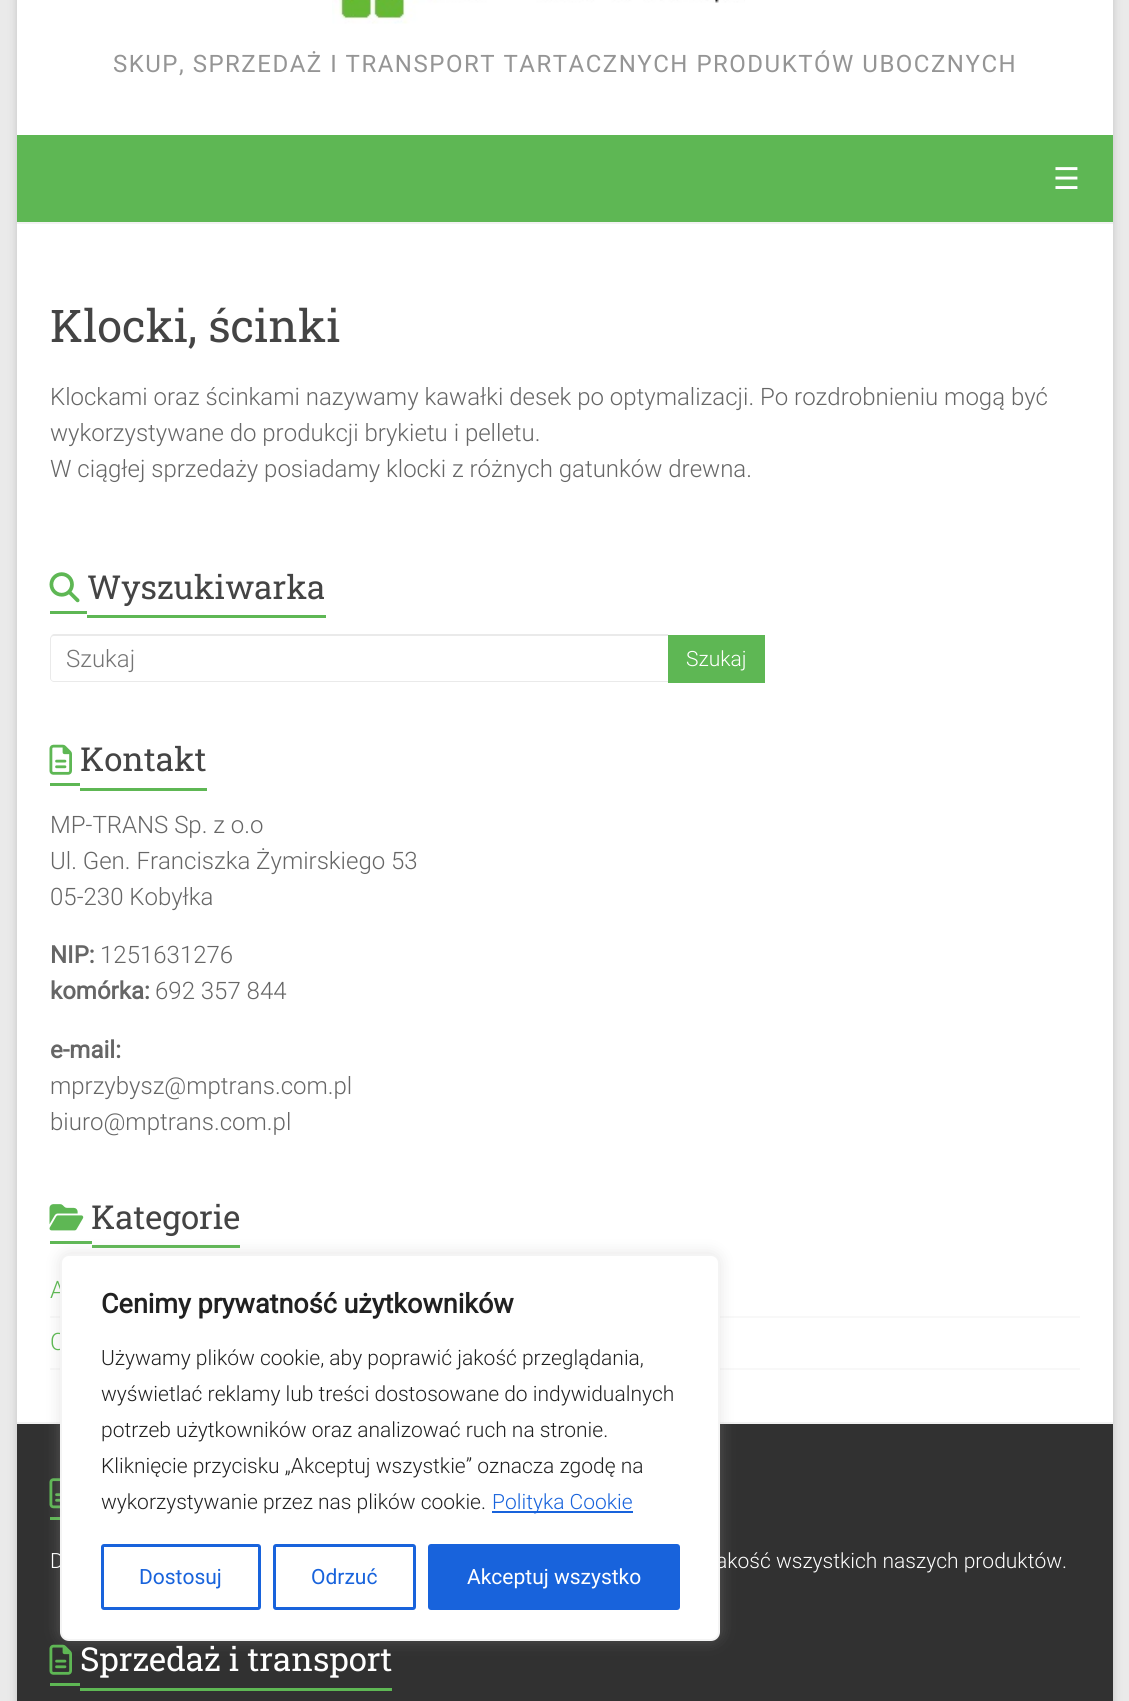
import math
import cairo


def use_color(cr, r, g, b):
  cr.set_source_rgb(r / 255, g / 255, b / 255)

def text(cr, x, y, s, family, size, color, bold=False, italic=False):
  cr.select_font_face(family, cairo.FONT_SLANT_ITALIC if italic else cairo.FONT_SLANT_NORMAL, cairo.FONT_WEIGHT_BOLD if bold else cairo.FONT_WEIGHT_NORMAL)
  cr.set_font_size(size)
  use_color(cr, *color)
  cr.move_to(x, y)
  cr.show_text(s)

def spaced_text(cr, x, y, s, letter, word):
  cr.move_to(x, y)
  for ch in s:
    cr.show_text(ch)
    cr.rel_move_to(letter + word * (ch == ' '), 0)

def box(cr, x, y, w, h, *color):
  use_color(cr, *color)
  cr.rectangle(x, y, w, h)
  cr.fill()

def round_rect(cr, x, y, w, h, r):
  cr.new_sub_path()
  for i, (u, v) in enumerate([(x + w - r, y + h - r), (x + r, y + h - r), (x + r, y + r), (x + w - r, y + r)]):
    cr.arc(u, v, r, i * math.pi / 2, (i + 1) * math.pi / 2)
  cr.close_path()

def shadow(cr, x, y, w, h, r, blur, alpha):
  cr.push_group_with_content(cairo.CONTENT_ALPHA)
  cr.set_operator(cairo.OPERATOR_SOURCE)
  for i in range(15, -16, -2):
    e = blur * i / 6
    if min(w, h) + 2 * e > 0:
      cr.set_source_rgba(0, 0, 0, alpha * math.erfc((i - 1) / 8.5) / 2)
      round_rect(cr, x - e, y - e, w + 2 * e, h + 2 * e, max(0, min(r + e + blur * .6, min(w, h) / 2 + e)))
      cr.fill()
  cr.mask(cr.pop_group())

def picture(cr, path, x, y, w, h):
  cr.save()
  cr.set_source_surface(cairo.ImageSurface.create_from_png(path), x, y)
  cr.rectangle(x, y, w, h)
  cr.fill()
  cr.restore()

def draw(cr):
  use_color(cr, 234, 234, 234)
  cr.paint()
  use_color(cr, 100, 100, 100)
  shadow(cr, 17, -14, 1096, 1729, 0, 4.5, 0.3)
  box(cr, 17, 0, 1096, 1422, 255, 255, 255)
  box(cr, 17, 222, 1096, 2, 242, 242, 242)
  picture(cr, "img_01.png", 332, 0, 413, 24)
  box(cr, 17, 135, 1096, 87, 94, 183, 84)
  picture(cr, "img_02.png", 49, 572, 31, 31)
  box(cr, 50, 611, 37, 3, 94, 183, 84)
  box(cr, 87, 615, 239, 3, 94, 183, 84)
  use_color(cr, 234, 234, 234)
  cr.set_fill_rule(cairo.FILL_RULE_EVEN_ODD)
  cr.new_path()
  cr.move_to(54, 634)
  cr.line_to(668, 634)
  cr.line_to(668, 682)
  cr.line_to(54, 682)
  cr.curve_to(52, 682, 50, 680, 50, 678)
  cr.line_to(50, 639)
  cr.curve_to(50, 637, 52, 634, 54, 634)
  cr.close_path()
  cr.move_to(54, 636)
  cr.line_to(668, 636)
  cr.line_to(668, 681)
  cr.line_to(54, 681)
  cr.curve_to(52, 681, 51, 680, 51, 678)
  cr.line_to(51, 639)
  cr.curve_to(51, 637, 52, 636, 54, 636)
  cr.close_path()
  cr.fill()
  box(cr, 668, 635, 97, 48, 94, 183, 84)
  picture(cr, "img_03.png", 49, 744, 23, 31)
  box(cr, 50, 783, 30, 3, 94, 183, 84)
  box(cr, 80, 788, 127, 3, 94, 183, 84)
  picture(cr, "img_04.png", 49, 1204, 35, 27)
  box(cr, 50, 1241, 42, 3, 94, 183, 84)
  box(cr, 92, 1245, 148, 3, 94, 183, 84)
  box(cr, 50, 1316, 1030, 2, 248, 248, 248)
  box(cr, 50, 1368, 1030, 2, 248, 248, 248)
  box(cr, 17, 1424, 1096, 277, 49, 49, 49)
  box(cr, 17, 1422, 1096, 2, 242, 242, 242)
  picture(cr, "img_05.png", 49, 1478, 11, 31)
  box(cr, 50, 1517, 10, 3, 94, 183, 84)
  picture(cr, "img_06.png", 49, 1644, 23, 31)
  box(cr, 50, 1683, 30, 3, 94, 183, 84)
  box(cr, 80, 1688, 312, 3, 94, 183, 84)
  use_color(cr, 172, 171, 171)
  shadow(cr, 60, 1253, 660, 387, 9, 7.5, 0.3)
  cr.select_font_face("Roboto")
  cr.set_font_size(24)
  use_color(cr, 149, 149, 149)
  spaced_text(cr, 113, 72, "SKUP, SPRZEDAŻ I TRANSPORT TARTACZNYCH PRODUKTÓW UBOCZNYCH", 1.5, 0)
  cr.select_font_face("DejaVu Sans")
  cr.set_font_size(30)
  use_color(cr, 255, 255, 255)
  spaced_text(cr, 1053, 189, "☰", 1.5, 0)
  text(cr, 50, 342, "Klocki, ścinki", "Roboto Slab", 45, (68, 68, 68))
  text(cr, 50, 405, "Klockami oraz ścinkami nazywamy kawałki desek po optymalizacji. Po rozdrobnieniu mogą być", "Roboto Light", 24, (102, 102, 102))
  text(cr, 50, 441, "wykorzystywane do produkcji brykietu i pelletu.", "Roboto Light", 24, (102, 102, 102))
  text(cr, 50, 477, "W ciągłej sprzedaży posiadamy klocki z różnych gatunków drewna.", "Roboto Light", 24, (102, 102, 102))
  text(cr, 87, 599, "Wyszukiwarka", "Roboto Slab", 33, (68, 68, 68))
  text(cr, 66, 667, "Szukaj", "Roboto Light", 24, (117, 117, 117))
  text(cr, 686, 666, "Szukaj", "Roboto Light", 21, (255, 255, 255))
  text(cr, 80, 771, "Kontakt", "Roboto Slab", 33, (68, 68, 68))
  text(cr, 50, 833, "MP-TRANS Sp. z o.o", "Roboto Light", 24, (102, 102, 102))
  text(cr, 50, 869, "Ul. Gen. Franciszka Żymirskiego 53", "Roboto Light", 24, (102, 102, 102))
  text(cr, 50, 905, "05-230 Kobyłka", "Roboto Light", 24, (102, 102, 102))
  text(cr, 50, 963, "NIP:", "Roboto", 24, (102, 102, 102), bold=True)
  text(cr, 100, 963, "1251631276", "Roboto Light", 24, (102, 102, 102))
  text(cr, 50, 999, "komórka:", "Roboto", 24, (102, 102, 102), bold=True)
  text(cr, 155, 999, "692 357 844", "Roboto Light", 24, (102, 102, 102))
  text(cr, 50, 1058, "e-mail:", "Roboto", 24, (102, 102, 102), bold=True)
  text(cr, 50, 1094, "mprzybysz@mptrans.com.pl", "Roboto Light", 24, (102, 102, 102))
  text(cr, 50, 1130, "biuro@mptrans.com.pl", "Roboto Light", 24, (102, 102, 102))
  text(cr, 91, 1229, "Kategorie", "Roboto Slab", 33, (68, 68, 68))
  text(cr, 50, 1298, "A", "Roboto Light", 24, (94, 183, 84))
  text(cr, 50, 1350, "C", "Roboto Light", 24, (94, 183, 84))
  text(cr, 50, 1568, "D", "Roboto Light", 21, (255, 255, 255))
  text(cr, 716, 1568, "akość wszystkich naszych produktów.", "Roboto Light", 21, (255, 255, 255))
  text(cr, 80, 1671, "Sprzedaż i transport", "Roboto Slab", 33, (255, 255, 255))
  round_rect(cr, 61, 1255, 658, 385, 8)
  cr.fill_preserve()
  use_color(cr, 244, 244, 244)
  cr.stroke()
  text(cr, 101, 1313, "Cenimy prywatność użytkowników", "Roboto", 27, (33, 33, 33), bold=True)
  text(cr, 101, 1365, "Używamy plików cookie, aby poprawić jakość przeglądania,", "Roboto Light", 21, (33, 33, 33))
  text(cr, 101, 1401, "wyświetlać reklamy lub treści dostosowane do indywidualnych", "Roboto Light", 21, (33, 33, 33))
  text(cr, 101, 1437, "potrzeb użytkowników oraz analizować ruch na stronie.", "Roboto Light", 21, (33, 33, 33))
  text(cr, 101, 1473, "Kliknięcie przycisku „Akceptuj wszystkie” oznacza zgodę na", "Roboto Light", 21, (33, 33, 33))
  text(cr, 101, 1509, "wykorzystywanie przez nas plików cookie.", "Roboto Light", 21, (33, 33, 33))
  box(cr, 492, 1511, 141, 2, 24, 99, 220)
  text(cr, 492, 1509, "Polityka Cookie", "Roboto Light", 21, (24, 99, 220))
  round_rect(cr, 102.5, 1545.5, 157, 63, 1.5)
  cr.set_line_width(3)
  cr.stroke()
  text(cr, 139, 1584, "Dostosuj", "Roboto", 21, (24, 99, 220))
  round_rect(cr, 274.5, 1545.5, 140, 63, 1.5)
  cr.stroke()
  text(cr, 311, 1584, "Odrzuć", "Roboto", 21, (24, 99, 220))
  round_rect(cr, 429.5, 1545.5, 249, 63, 1.5)
  cr.fill_preserve()
  cr.stroke()
  text(cr, 467, 1584, "Akceptuj wszystko", "Roboto", 21, (255, 255, 255))


surface = cairo.ImageSurface(cairo.FORMAT_RGB24, 1129, 1701)
cr = cairo.Context(surface)
options = cairo.FontOptions()
options.set_hint_metrics(cairo.HINT_METRICS_OFF)
options.set_hint_style(cairo.HINT_STYLE_NONE)
cr.set_font_options(options)
cr.set_miter_limit(4)
draw(cr)
surface.write_to_png("out.png")
